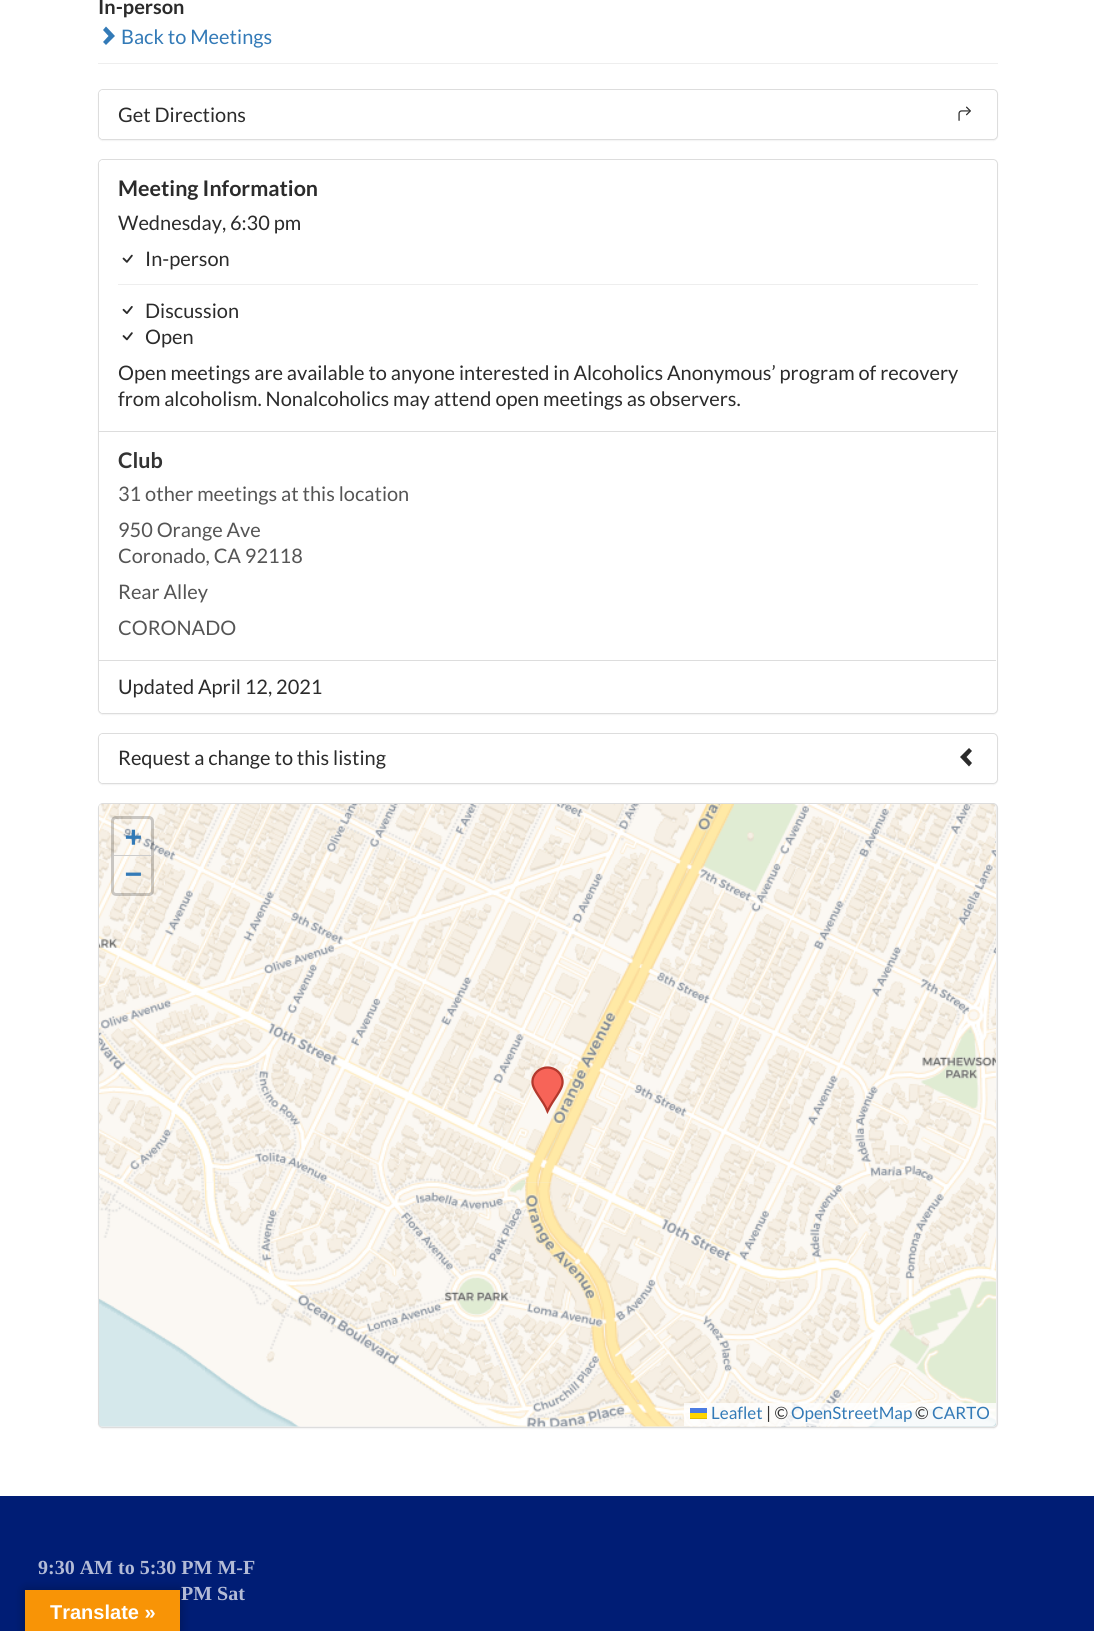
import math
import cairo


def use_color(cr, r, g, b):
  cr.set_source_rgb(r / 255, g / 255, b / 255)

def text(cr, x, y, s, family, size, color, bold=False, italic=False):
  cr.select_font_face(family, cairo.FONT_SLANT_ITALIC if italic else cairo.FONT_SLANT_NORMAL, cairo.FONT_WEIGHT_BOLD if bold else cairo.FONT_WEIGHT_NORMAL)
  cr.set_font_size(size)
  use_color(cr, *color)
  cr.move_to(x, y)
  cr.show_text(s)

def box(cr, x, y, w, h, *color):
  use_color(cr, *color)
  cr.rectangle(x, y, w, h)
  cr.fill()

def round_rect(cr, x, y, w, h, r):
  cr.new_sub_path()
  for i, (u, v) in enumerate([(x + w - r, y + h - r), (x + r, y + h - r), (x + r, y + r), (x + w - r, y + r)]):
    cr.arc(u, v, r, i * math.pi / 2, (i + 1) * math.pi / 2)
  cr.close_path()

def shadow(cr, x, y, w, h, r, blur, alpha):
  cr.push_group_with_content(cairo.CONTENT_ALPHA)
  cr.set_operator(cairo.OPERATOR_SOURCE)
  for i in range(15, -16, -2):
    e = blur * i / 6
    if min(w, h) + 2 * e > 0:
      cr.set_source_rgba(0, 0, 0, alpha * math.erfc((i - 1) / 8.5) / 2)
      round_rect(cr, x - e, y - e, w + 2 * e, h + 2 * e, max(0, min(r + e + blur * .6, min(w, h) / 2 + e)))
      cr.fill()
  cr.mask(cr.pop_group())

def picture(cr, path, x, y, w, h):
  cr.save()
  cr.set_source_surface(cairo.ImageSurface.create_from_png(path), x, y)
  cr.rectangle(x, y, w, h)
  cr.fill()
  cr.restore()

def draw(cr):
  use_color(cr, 255, 255, 255)
  cr.paint()
  box(cr, 98, 63, 900, 1, 238, 238, 238)
  use_color(cr, 51, 122, 183)
  cr.new_path()
  cr.move_to(115, 36)
  cr.line_to(106, 45)
  cr.line_to(103, 42)
  cr.line_to(108.5, 36)
  cr.line_to(103, 30)
  cr.line_to(106, 26.5)
  cr.close_path()
  cr.fill()
  use_color(cr, 0, 0, 0)
  shadow(cr, 98, 90, 900, 51, 5, 0.5, 0.05)
  use_color(cr, 255, 255, 255)
  round_rect(cr, 98.5, 89.5, 899, 50, 4.5)
  cr.fill_preserve()
  use_color(cr, 221, 221, 221)
  cr.set_line_width(1)
  cr.stroke()
  use_color(cr, 255, 255, 255)
  round_rect(cr, 99, 90, 897, 49, 4)
  cr.fill()
  picture(cr, "img_01.png", 958, 106, 13, 15)
  use_color(cr, 0, 0, 0)
  shadow(cr, 98, 160, 900, 555, 5, 0.5, 0.05)
  use_color(cr, 255, 255, 255)
  round_rect(cr, 98.5, 159.5, 899, 554, 4.5)
  cr.fill_preserve()
  use_color(cr, 221, 221, 221)
  cr.stroke()
  use_color(cr, 255, 255, 255)
  cr.new_path()
  cr.move_to(103, 160)
  cr.line_to(992, 160)
  cr.curve_to(994, 160, 996, 162, 996, 164)
  cr.line_to(996, 433)
  cr.line_to(99, 433)
  cr.line_to(99, 164)
  cr.curve_to(99, 162, 101, 160, 103, 160)
  cr.close_path()
  cr.fill()
  box(cr, 99, 431, 897, 1, 221, 221, 221)
  picture(cr, "img_02.png", 122, 254, 11, 9)
  box(cr, 118, 284, 860, 1, 238, 238, 238)
  picture(cr, "img_03.png", 122, 306, 11, 8)
  picture(cr, "img_04.png", 122, 332, 11, 9)
  use_color(cr, 255, 255, 255)
  cr.new_path()
  cr.move_to(99, 660)
  cr.line_to(996, 660)
  cr.line_to(996, 709)
  cr.curve_to(996, 711, 994, 713, 992, 713)
  cr.line_to(103, 713)
  cr.curve_to(101, 713, 99, 711, 99, 709)
  cr.close_path()
  cr.fill()
  box(cr, 99, 660, 897, 1, 221, 221, 221)
  use_color(cr, 0, 0, 0)
  shadow(cr, 98, 734, 900, 51, 5, 0.5, 0.05)
  use_color(cr, 255, 255, 255)
  round_rect(cr, 98.5, 733.5, 899, 50, 4.5)
  cr.fill_preserve()
  use_color(cr, 221, 221, 221)
  cr.stroke()
  use_color(cr, 255, 255, 255)
  round_rect(cr, 99, 734, 897, 49, 4)
  cr.fill()
  use_color(cr, 43, 43, 43)
  cr.new_path()
  cr.move_to(972, 751)
  cr.line_to(966.5, 757)
  cr.line_to(972, 763)
  cr.line_to(969, 766.5)
  cr.line_to(960, 757)
  cr.line_to(969, 748)
  cr.close_path()
  cr.fill()
  use_color(cr, 0, 0, 0)
  shadow(cr, 98, 804, 900, 625, 5, 0.5, 0.05)
  use_color(cr, 238, 238, 238)
  round_rect(cr, 98.5, 803.5, 899, 624, 4.5)
  cr.fill_preserve()
  use_color(cr, 221, 221, 221)
  cr.stroke()
  picture(cr, "img_05.png", 99, 804, 106, 59)
  picture(cr, "img_06.png", 205, 804, 320, 59)
  picture(cr, "img_07.png", 525, 804, 320, 59)
  picture(cr, "img_08.png", 845, 804, 151, 59)
  picture(cr, "img_09.png", 99, 863, 106, 320)
  picture(cr, "img_10.png", 205, 863, 320, 320)
  picture(cr, "img_11.png", 525, 863, 320, 320)
  picture(cr, "img_12.png", 845, 863, 151, 320)
  picture(cr, "img_13.png", 99, 1182, 106, 245)
  picture(cr, "img_14.png", 205, 1182, 320, 245)
  picture(cr, "img_15.png", 525, 1182, 320, 245)
  picture(cr, "img_16.png", 845, 1182, 151, 245)
  picture(cr, "img_17.png", 531, 1066, 33, 48)
  round_rect(cr, 112.5, 817.5, 40, 77, 3.5)
  cr.set_source_rgba(0, 0, 0, 0.2)
  cr.set_line_width(3)
  cr.stroke()
  box(cr, 114, 855, 37, 1, 204, 204, 204)
  cr.set_source_rgba(1, 1, 1, 0.8)
  cr.new_path()
  cr.move_to(684, 1403)
  cr.line_to(996, 1403)
  cr.line_to(996, 1422)
  cr.curve_to(996, 1424, 994, 1426, 992, 1426)
  cr.line_to(684, 1426)
  cr.close_path()
  cr.fill()
  box(cr, 690, 1408, 17, 5, 76, 123, 225)
  box(cr, 690, 1413, 17, 5, 255, 213, 0)
  box(cr, 690, 1418, 17, 1, 224, 188, 0)
  box(cr, 0, 1496, 1094, 135, 0, 29, 117)
  use_color(cr, 0, 0, 0)
  shadow(cr, 25, 1590, 155, 41, 0, 5.5, 0.3)
  box(cr, 25, 1590, 155, 41, 248, 148, 6)
  text(cr, 98, 14, "In-person", "Lato", 20, (43, 43, 43), bold=True)
  text(cr, 121, 44, "Back to Meetings", "Lato", 20, (51, 122, 183))
  text(cr, 118, 122, "Get Directions", "Lato", 20, (43, 43, 43))
  text(cr, 118, 196, "Meeting Information", "Lato", 21.5, (43, 43, 43), bold=True)
  text(cr, 118, 230, "Wednesday, 6:30 pm", "Lato", 20, (43, 43, 43))
  text(cr, 145, 266, "In-person", "Lato", 20, (43, 43, 43))
  text(cr, 145, 318, "Discussion", "Lato", 20, (43, 43, 43))
  text(cr, 145, 344, "Open", "Lato", 20, (43, 43, 43))
  text(cr, 118, 380, "Open meetings are available to anyone interested in Alcoholics Anonymous’ program of recovery", "Lato", 20, (43, 43, 43))
  text(cr, 118, 406, "from alcoholism. Nonalcoholics may attend open meetings as observers.", "Lato", 20, (43, 43, 43))
  text(cr, 118, 468, "Club", "Lato", 21.5, (51, 51, 51), bold=True)
  text(cr, 118, 501, "31 other meetings at this location", "Lato", 20, (85, 85, 85))
  text(cr, 118, 537, "950 Orange Ave", "Lato", 20, (85, 85, 85))
  text(cr, 118, 563, "Coronado, CA 92118", "Lato", 20, (85, 85, 85))
  text(cr, 118, 599, "Rear Alley", "Lato", 20, (85, 85, 85))
  text(cr, 118, 635, "CORONADO", "Lato", 20, (85, 85, 85))
  text(cr, 118, 694, "Updated April 12, 2021", "Lato", 20, (43, 43, 43))
  text(cr, 118, 765, "Request a change to this listing", "Lato", 20, (43, 43, 43))
  text(cr, 125, 846, "+", "DejaVu Sans Mono", 28, (51, 122, 183), bold=True)
  text(cr, 125, 883, "−", "DejaVu Sans Mono", 28, (51, 122, 183), bold=True)
  text(cr, 711, 1419, "Leaflet", "Lato", 17, (51, 122, 183))
  text(cr, 766, 1419, "| ©", "Lato", 17, (51, 51, 51))
  text(cr, 791, 1419, "OpenStreetMap", "Lato", 17, (51, 122, 183))
  text(cr, 915, 1419, "©", "Lato", 17, (51, 51, 51))
  text(cr, 932, 1419, "CARTO", "Lato", 17, (51, 122, 183))
  text(cr, 38, 1574, "9:30 AM to 5:30 PM M-F", "Liberation Serif", 20, (179, 187, 214), bold=True)
  text(cr, 181, 1600, "PM Sat", "Liberation Serif", 20, (179, 187, 214), bold=True)
  text(cr, 50, 1619, "Translate »", "Liberation Sans", 20, (255, 255, 255), bold=True)


surface = cairo.ImageSurface(cairo.FORMAT_RGB24, 1094, 1631)
cr = cairo.Context(surface)
options = cairo.FontOptions()
options.set_hint_metrics(cairo.HINT_METRICS_OFF)
options.set_hint_style(cairo.HINT_STYLE_NONE)
cr.set_font_options(options)
cr.set_miter_limit(4)
draw(cr)
surface.write_to_png("out.png")
